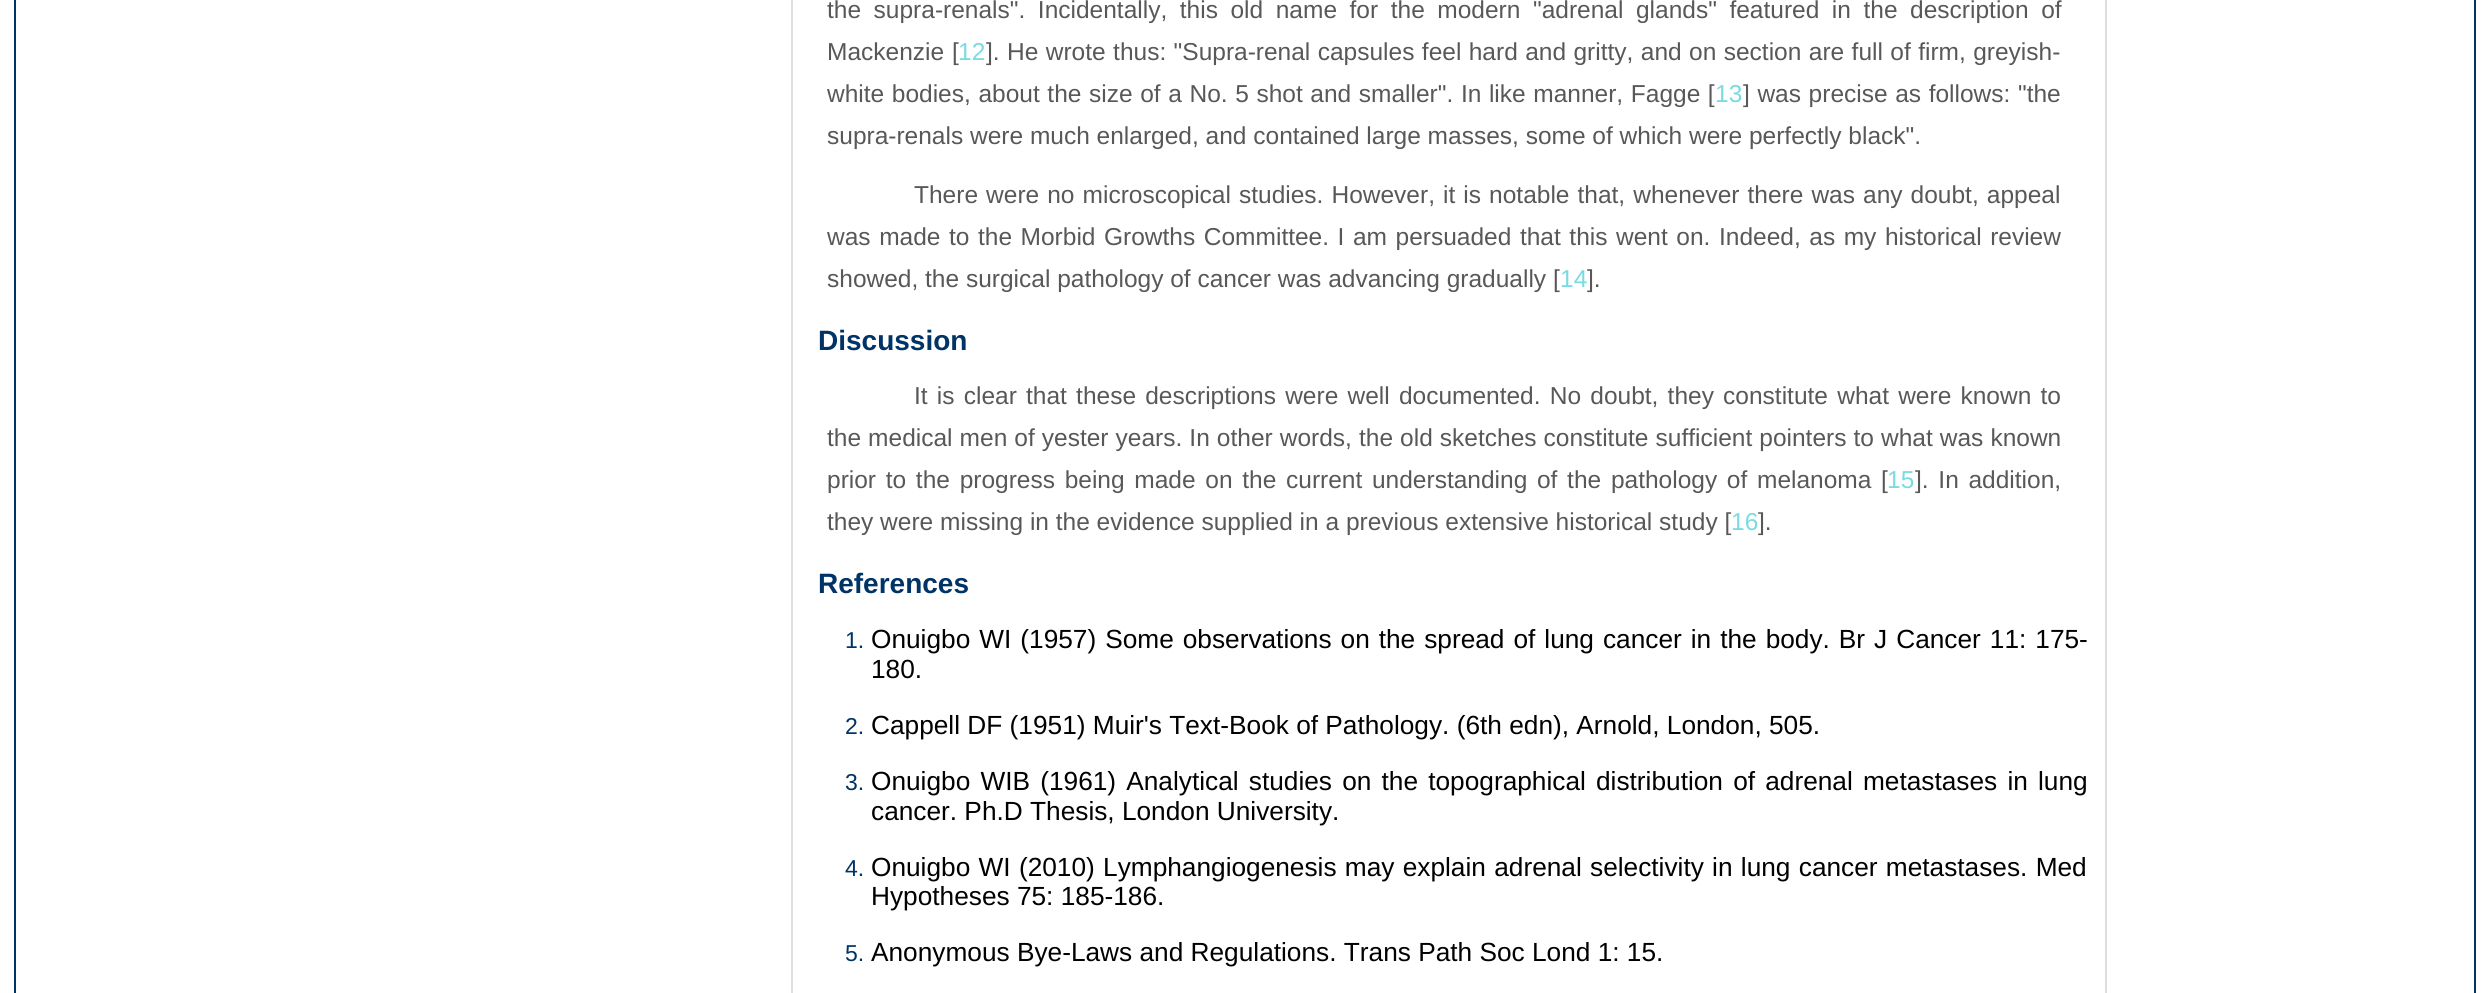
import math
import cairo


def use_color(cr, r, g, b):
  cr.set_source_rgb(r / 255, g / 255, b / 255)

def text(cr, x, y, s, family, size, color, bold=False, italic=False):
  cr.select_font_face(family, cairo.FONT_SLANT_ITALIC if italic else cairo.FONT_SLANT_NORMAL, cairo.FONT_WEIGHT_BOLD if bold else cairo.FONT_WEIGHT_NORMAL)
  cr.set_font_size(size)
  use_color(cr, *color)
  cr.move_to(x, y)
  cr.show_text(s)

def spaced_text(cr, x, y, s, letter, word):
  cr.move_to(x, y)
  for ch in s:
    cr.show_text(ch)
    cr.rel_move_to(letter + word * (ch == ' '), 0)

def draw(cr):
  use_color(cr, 255, 255, 255)
  cr.paint()
  cr.rectangle(15, -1, 2460, 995)
  use_color(cr, 0, 51, 102)
  cr.stroke()
  cr.rectangle(792, -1, 1314, 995)
  use_color(cr, 222, 222, 222)
  cr.stroke()
  cr.select_font_face("Liberation Sans")
  cr.set_font_size(24.5)
  use_color(cr, 88, 88, 88)
  spaced_text(cr, 827, 18, "the supra-renals\". Incidentally, this old name for the modern \"adrenal glands\" featured in the description of", 0, 5.75)
  spaced_text(cr, 827, 60, "Mackenzie [", 0, 1)
  text(cr, 958, 60, "12", "Liberation Sans", 24.5, (120, 219, 225))
  use_color(cr, 88, 88, 88)
  spaced_text(cr, 986, 60, "]. He wrote thus: \"Supra-renal capsules feel hard and gritty, and on section are full of firm, greyish-", 0, 0.6)
  spaced_text(cr, 827, 102, "white bodies, about the size of a No. 5 shot and smaller\". In like manner, Fagge [", 0, 0.8)
  text(cr, 1715, 102, "13", "Liberation Sans", 24.5, (120, 219, 225))
  use_color(cr, 88, 88, 88)
  spaced_text(cr, 1743, 102, "] was precise as follows: \"the", 0, 0.8)
  text(cr, 827, 144, "supra-renals were much enlarged, and contained large masses, some of which were perfectly black\".", "Liberation Sans", 24.5, (88, 88, 88))
  spaced_text(cr, 914, 203, "There were no microscopical studies. However, it is notable that, whenever there was any doubt, appeal", 0, 1.25)
  spaced_text(cr, 827, 245, "was made to the Morbid Growths Committee. I am persuaded that this went on. Indeed, as my historical review", 0, 1.75)
  text(cr, 827, 287, "showed, the surgical pathology of cancer was advancing gradually [", "Liberation Sans", 24.5, (88, 88, 88))
  text(cr, 1560, 287, "14", "Liberation Sans", 24.5, (120, 219, 225))
  text(cr, 1587, 287, "].", "Liberation Sans", 24.5, (88, 88, 88))
  text(cr, 818, 350, "Discussion", "Liberation Sans", 28, (0, 51, 102), bold=True)
  cr.select_font_face("Liberation Sans")
  cr.set_font_size(24.5)
  use_color(cr, 88, 88, 88)
  spaced_text(cr, 914, 404, "It is clear that these descriptions were well documented. No doubt, they constitute what were known to", 0, 2.4)
  spaced_text(cr, 827, 446, "the medical men of yester years. In other words, the old sketches constitute sufficient pointers to what was known", 0, 0.25)
  spaced_text(cr, 827, 488, "prior to the progress being made on the current understanding of the pathology of melanoma [", 0, 2.9)
  text(cr, 1887, 488, "15", "Liberation Sans", 24.5, (120, 219, 225))
  use_color(cr, 88, 88, 88)
  spaced_text(cr, 1915, 488, "]. In addition,", 0, 2.9)
  text(cr, 827, 530, "they were missing in the evidence supplied in a previous extensive historical study [", "Liberation Sans", 24.5, (88, 88, 88))
  text(cr, 1731, 530, "16", "Liberation Sans", 24.5, (120, 219, 225))
  text(cr, 1758, 530, "].", "Liberation Sans", 24.5, (88, 88, 88))
  text(cr, 818, 593, "References", "Liberation Sans", 28, (0, 51, 102), bold=True)
  text(cr, 845, 648, "1.", "Liberation Sans", 23, (0, 51, 102))
  cr.set_font_size(26.25)
  use_color(cr, 0, 0, 0)
  spaced_text(cr, 871, 648, "Onuigbo WI (1957) Some observations on the spread of lung cancer in the body. Br J Cancer 11: 175-", 0, 1.7)
  text(cr, 871, 678, "180.", "Liberation Sans", 26.25, (0, 0, 0))
  text(cr, 845, 734, "2.", "Liberation Sans", 23, (0, 51, 102))
  text(cr, 871, 734, "Cappell DF (1951) Muir's Text-Book of Pathology. (6th edn), Arnold, London, 505.", "Liberation Sans", 26.25, (0, 0, 0))
  text(cr, 845, 790, "3.", "Liberation Sans", 23, (0, 51, 102))
  cr.set_font_size(26.25)
  use_color(cr, 0, 0, 0)
  spaced_text(cr, 871, 790, "Onuigbo WIB (1961) Analytical studies on the topographical distribution of adrenal metastases in lung", 0, 2.9)
  text(cr, 871, 820, "cancer. Ph.D Thesis, London University.", "Liberation Sans", 26.25, (0, 0, 0))
  text(cr, 845, 876, "4.", "Liberation Sans", 23, (0, 51, 102))
  cr.set_font_size(26.25)
  use_color(cr, 0, 0, 0)
  spaced_text(cr, 871, 876, "Onuigbo WI (2010) Lymphangiogenesis may explain adrenal selectivity in lung cancer metastases. Med", 0, 1)
  text(cr, 871, 905, "Hypotheses 75: 185-186.", "Liberation Sans", 26.25, (0, 0, 0))
  text(cr, 845, 961, "5.", "Liberation Sans", 23, (0, 51, 102))
  text(cr, 871, 961, "Anonymous Bye-Laws and Regulations. Trans Path Soc Lond 1: 15.", "Liberation Sans", 26.25, (0, 0, 0))


surface = cairo.ImageSurface(cairo.FORMAT_RGB24, 2490, 993)
cr = cairo.Context(surface)
options = cairo.FontOptions()
options.set_hint_metrics(cairo.HINT_METRICS_OFF)
options.set_hint_style(cairo.HINT_STYLE_NONE)
cr.set_font_options(options)
cr.set_miter_limit(4)
draw(cr)
surface.write_to_png("out.png")
